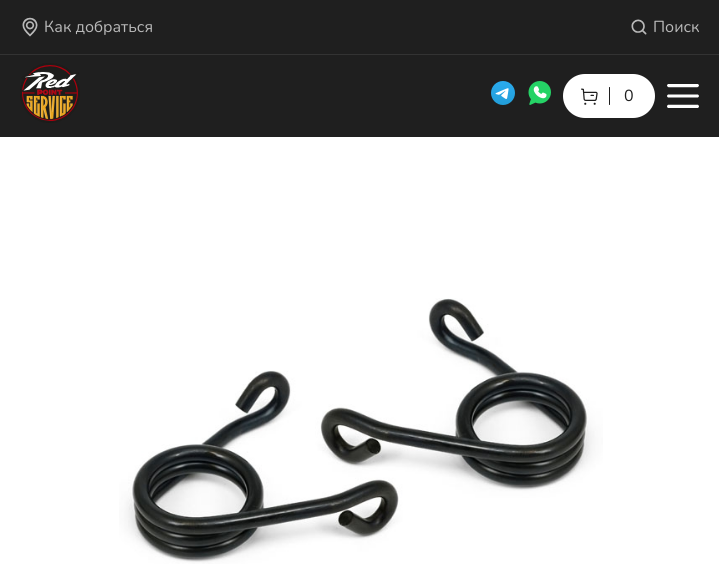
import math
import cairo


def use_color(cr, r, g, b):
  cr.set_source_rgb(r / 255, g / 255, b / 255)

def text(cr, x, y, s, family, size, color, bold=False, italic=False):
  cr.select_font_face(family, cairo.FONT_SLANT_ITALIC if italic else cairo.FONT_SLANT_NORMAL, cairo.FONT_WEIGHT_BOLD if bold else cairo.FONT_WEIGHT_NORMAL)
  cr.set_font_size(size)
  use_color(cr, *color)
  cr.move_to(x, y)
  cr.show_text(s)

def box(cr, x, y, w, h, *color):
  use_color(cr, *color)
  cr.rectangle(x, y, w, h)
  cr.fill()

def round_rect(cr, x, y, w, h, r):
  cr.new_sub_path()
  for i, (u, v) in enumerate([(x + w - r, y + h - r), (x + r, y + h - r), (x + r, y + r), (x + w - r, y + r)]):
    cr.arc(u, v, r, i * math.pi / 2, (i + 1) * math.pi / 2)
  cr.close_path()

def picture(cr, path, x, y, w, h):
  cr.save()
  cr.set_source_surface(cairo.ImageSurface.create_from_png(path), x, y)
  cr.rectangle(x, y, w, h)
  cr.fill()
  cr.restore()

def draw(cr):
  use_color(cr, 255, 255, 255)
  cr.paint()
  box(cr, 0, 0, 719, 137, 31, 31, 31)
  box(cr, 0, 54, 719, 1, 51, 51, 51)
  picture(cr, "img_01.png", 22, 17, 16, 20)
  picture(cr, "img_02.png", 631, 19, 16, 16)
  picture(cr, "img_03.png", 20, 63, 60, 60)
  picture(cr, "img_04.png", 491, 81, 24, 24)
  picture(cr, "img_05.png", 528, 81, 23, 24)
  use_color(cr, 255, 255, 255)
  round_rect(cr, 563, 74, 92, 44, 22)
  cr.fill()
  picture(cr, "img_06.png", 581, 88, 17, 17)
  picture(cr, "img_07.png", 609, 87, 1, 18)
  picture(cr, "img_08.png", 667, 84, 32, 24)
  picture(cr, "img_09.png", 119, 298, 484, 266)
  text(cr, 44, 32, "Как добраться", "Nunito", 16, (185, 185, 185))
  text(cr, 653, 32, "Поиск", "Nunito", 16, (185, 185, 185))
  text(cr, 624, 101, "0", "Nunito", 16, (31, 31, 31))


surface = cairo.ImageSurface(cairo.FORMAT_RGB24, 719, 587)
cr = cairo.Context(surface)
options = cairo.FontOptions()
options.set_hint_metrics(cairo.HINT_METRICS_OFF)
options.set_hint_style(cairo.HINT_STYLE_NONE)
cr.set_font_options(options)
cr.set_miter_limit(4)
draw(cr)
surface.write_to_png("out.png")
